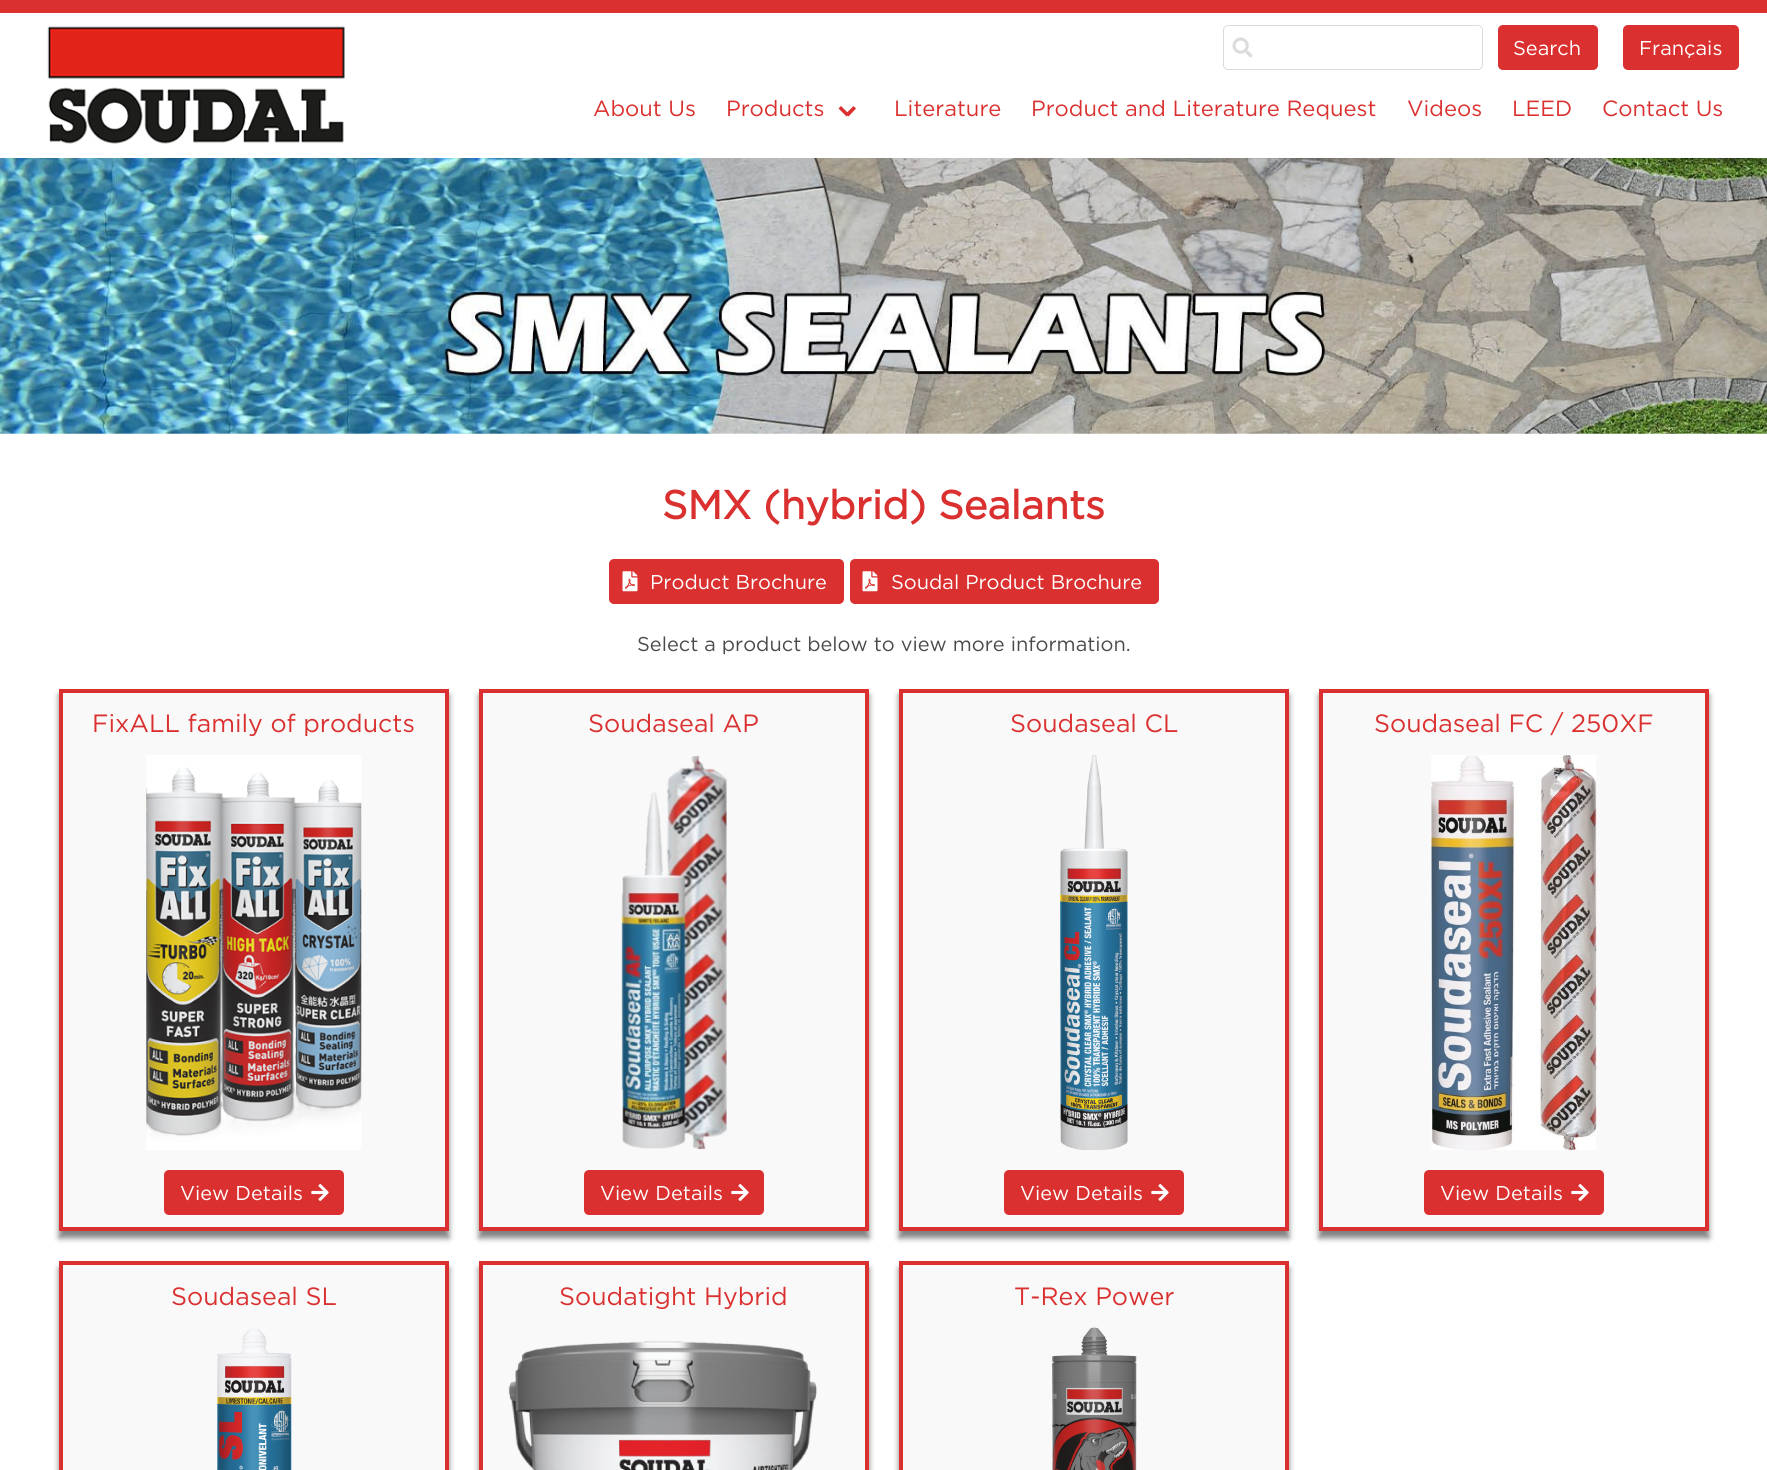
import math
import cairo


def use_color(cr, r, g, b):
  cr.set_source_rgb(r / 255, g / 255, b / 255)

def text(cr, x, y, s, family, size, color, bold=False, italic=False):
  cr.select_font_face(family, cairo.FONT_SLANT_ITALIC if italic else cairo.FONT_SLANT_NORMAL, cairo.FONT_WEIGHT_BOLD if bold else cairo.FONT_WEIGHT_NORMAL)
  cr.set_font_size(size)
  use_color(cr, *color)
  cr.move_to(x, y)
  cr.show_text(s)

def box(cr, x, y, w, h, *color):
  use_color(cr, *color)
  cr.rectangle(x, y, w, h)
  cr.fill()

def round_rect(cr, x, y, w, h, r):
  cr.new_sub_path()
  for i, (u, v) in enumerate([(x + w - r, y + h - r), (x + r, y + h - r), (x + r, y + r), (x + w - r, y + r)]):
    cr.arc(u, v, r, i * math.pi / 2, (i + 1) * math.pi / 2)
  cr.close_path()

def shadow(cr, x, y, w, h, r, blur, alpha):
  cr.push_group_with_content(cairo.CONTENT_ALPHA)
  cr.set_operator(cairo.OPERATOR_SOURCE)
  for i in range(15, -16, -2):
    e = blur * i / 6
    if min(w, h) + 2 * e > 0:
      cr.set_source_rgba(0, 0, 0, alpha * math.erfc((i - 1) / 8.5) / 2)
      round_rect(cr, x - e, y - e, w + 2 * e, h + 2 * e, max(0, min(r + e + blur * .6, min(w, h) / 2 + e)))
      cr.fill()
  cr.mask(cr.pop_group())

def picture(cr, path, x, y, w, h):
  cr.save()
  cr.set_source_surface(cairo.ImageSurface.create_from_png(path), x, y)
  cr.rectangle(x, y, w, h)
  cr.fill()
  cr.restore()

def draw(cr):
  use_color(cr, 255, 255, 255)
  cr.paint()
  box(cr, 0, 0, 1767, 13, 218, 48, 47)
  picture(cr, "img_01.png", 47, 26, 298, 118)
  round_rect(cr, 1223.5, 25.5, 259, 44, 4.5)
  use_color(cr, 219, 219, 219)
  cr.set_line_width(1)
  cr.stroke()
  picture(cr, "img_02.png", 1232, 37, 21, 21)
  use_color(cr, 218, 48, 47)
  round_rect(cr, 1498, 25, 100, 45, 5)
  cr.fill()
  round_rect(cr, 1623, 25, 116, 45, 5)
  cr.fill()
  cr.new_path()
  cr.move_to(845.5, 114)
  cr.line_to(853.5, 106)
  cr.line_to(856, 108.5)
  cr.line_to(848.5, 116.5)
  cr.close_path()
  cr.fill()
  cr.new_path()
  cr.move_to(838.5, 108.5)
  cr.line_to(841, 106)
  cr.line_to(849, 114)
  cr.line_to(846.5, 116.5)
  cr.close_path()
  cr.fill()
  picture(cr, "img_03.png", 0, 158, 1767, 276)
  round_rect(cr, 609, 559, 235, 45, 5)
  cr.fill()
  picture(cr, "img_04.png", 622, 571, 16, 21)
  round_rect(cr, 850, 559, 309, 45, 5)
  cr.fill()
  picture(cr, "img_04.png", 862, 571, 16, 21)
  use_color(cr, 0, 0, 0)
  shadow(cr, 59, 695, 390, 543, 0, 3, 0.5)
  use_color(cr, 249, 249, 249)
  cr.rectangle(61, 691, 386, 538)
  cr.fill_preserve()
  use_color(cr, 218, 48, 47)
  cr.set_line_width(4)
  cr.stroke()
  picture(cr, "img_05.png", 146, 755, 216, 395)
  round_rect(cr, 164, 1170, 180, 45, 5)
  cr.fill()
  picture(cr, "img_06.png", 311, 1184, 18, 17)
  use_color(cr, 0, 0, 0)
  shadow(cr, 479, 695, 390, 543, 0, 3, 0.5)
  use_color(cr, 249, 249, 249)
  cr.rectangle(481, 691, 386, 538)
  cr.fill_preserve()
  use_color(cr, 218, 48, 47)
  cr.stroke()
  picture(cr, "img_07.png", 621, 755, 106, 395)
  round_rect(cr, 584, 1170, 180, 45, 5)
  cr.fill()
  picture(cr, "img_06.png", 731, 1184, 18, 17)
  use_color(cr, 0, 0, 0)
  shadow(cr, 899, 695, 390, 543, 0, 3, 0.5)
  use_color(cr, 249, 249, 249)
  cr.rectangle(901, 691, 386, 538)
  cr.fill_preserve()
  use_color(cr, 218, 48, 47)
  cr.stroke()
  picture(cr, "img_08.png", 1060, 755, 68, 395)
  round_rect(cr, 1004, 1170, 180, 45, 5)
  cr.fill()
  picture(cr, "img_06.png", 1151, 1184, 18, 17)
  use_color(cr, 0, 0, 0)
  shadow(cr, 1319, 695, 390, 543, 0, 3, 0.5)
  use_color(cr, 249, 249, 249)
  cr.rectangle(1321, 691, 386, 538)
  cr.fill_preserve()
  use_color(cr, 218, 48, 47)
  cr.stroke()
  picture(cr, "img_09.png", 1431, 755, 166, 395)
  round_rect(cr, 1424, 1170, 180, 45, 5)
  cr.fill()
  picture(cr, "img_06.png", 1571, 1184, 18, 17)
  use_color(cr, 0, 0, 0)
  shadow(cr, 59, 1268, 390, 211, 0, 3, 0.5)
  use_color(cr, 249, 249, 249)
  cr.rectangle(61, 1263, 386, 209)
  cr.fill_preserve()
  use_color(cr, 218, 48, 47)
  cr.stroke()
  picture(cr, "img_10.png", 217, 1328, 75, 142)
  use_color(cr, 0, 0, 0)
  shadow(cr, 479, 1268, 390, 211, 0, 3, 0.5)
  use_color(cr, 249, 249, 249)
  cr.rectangle(481, 1263, 386, 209)
  cr.fill_preserve()
  use_color(cr, 218, 48, 47)
  cr.stroke()
  picture(cr, "img_11.png", 508, 1341, 309, 129)
  use_color(cr, 0, 0, 0)
  shadow(cr, 899, 1268, 390, 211, 0, 3, 0.5)
  use_color(cr, 249, 249, 249)
  cr.rectangle(901, 1263, 386, 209)
  cr.fill_preserve()
  use_color(cr, 218, 48, 47)
  cr.stroke()
  picture(cr, "img_12.png", 1052, 1327, 85, 143)
  text(cr, 1513, 55, "Search", "Gotham", 20, (255, 255, 255))
  text(cr, 1639, 55, "Français", "Gotham", 20, (255, 255, 255))
  text(cr, 593, 116, "About Us", "Gotham", 22, (218, 48, 47))
  text(cr, 726, 116, "Products", "Gotham", 22, (218, 48, 47))
  text(cr, 894, 116, "Literature", "Gotham", 22, (218, 48, 47))
  text(cr, 1031, 116, "Product and Literature Request", "Gotham", 22, (218, 48, 47))
  text(cr, 1407, 116, "Videos", "Gotham", 22, (218, 48, 47))
  text(cr, 1512, 116, "LEED", "Gotham", 22, (218, 48, 47))
  text(cr, 1602, 116, "Contact Us", "Gotham", 22, (218, 48, 47))
  text(cr, 662, 519, "SMX (hybrid) Sealants", "Gotham", 40, (218, 48, 47), bold=True)
  text(cr, 650, 589, "Product Brochure", "Gotham", 20, (255, 255, 255))
  text(cr, 891, 589, "Soudal Product Brochure", "Gotham", 20, (255, 255, 255))
  text(cr, 637, 651, "Select a product below to view more information.", "Gotham", 20, (74, 74, 74))
  text(cr, 92, 732, "FixALL family of products", "Gotham", 25, (218, 48, 47))
  text(cr, 180, 1200, "View Details", "Gotham", 20, (255, 255, 255))
  text(cr, 588, 732, "Soudaseal AP", "Gotham", 25, (218, 48, 47))
  text(cr, 600, 1200, "View Details", "Gotham", 20, (255, 255, 255))
  text(cr, 1010, 732, "Soudaseal CL", "Gotham", 25, (218, 48, 47))
  text(cr, 1020, 1200, "View Details", "Gotham", 20, (255, 255, 255))
  text(cr, 1374, 732, "Soudaseal FC / 250XF", "Gotham", 25, (218, 48, 47))
  text(cr, 1440, 1200, "View Details", "Gotham", 20, (255, 255, 255))
  text(cr, 171, 1305, "Soudaseal SL", "Gotham", 25, (218, 48, 47))
  text(cr, 559, 1305, "Soudatight Hybrid", "Gotham", 25, (218, 48, 47))
  text(cr, 1014, 1305, "T-Rex Power", "Gotham", 25, (218, 48, 47))


surface = cairo.ImageSurface(cairo.FORMAT_RGB24, 1767, 1470)
cr = cairo.Context(surface)
options = cairo.FontOptions()
options.set_hint_metrics(cairo.HINT_METRICS_OFF)
options.set_hint_style(cairo.HINT_STYLE_NONE)
cr.set_font_options(options)
cr.set_miter_limit(4)
draw(cr)
surface.write_to_png("out.png")
